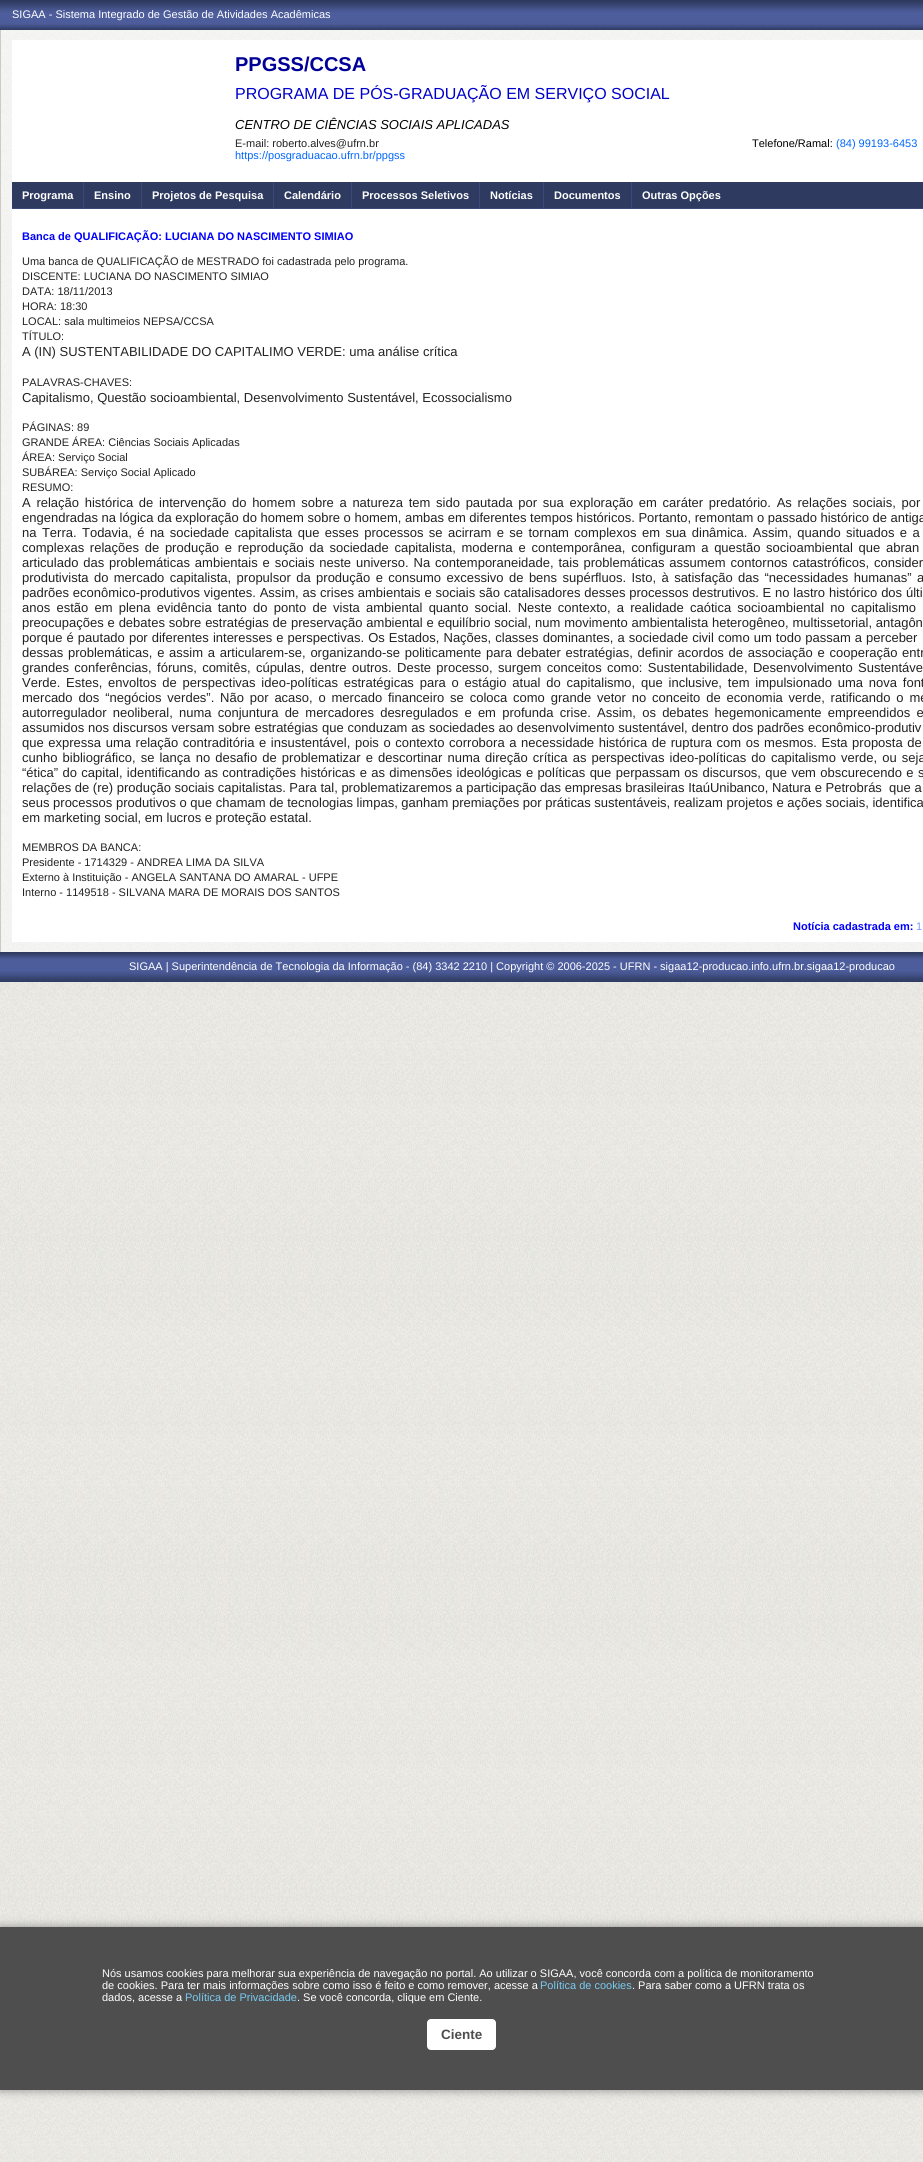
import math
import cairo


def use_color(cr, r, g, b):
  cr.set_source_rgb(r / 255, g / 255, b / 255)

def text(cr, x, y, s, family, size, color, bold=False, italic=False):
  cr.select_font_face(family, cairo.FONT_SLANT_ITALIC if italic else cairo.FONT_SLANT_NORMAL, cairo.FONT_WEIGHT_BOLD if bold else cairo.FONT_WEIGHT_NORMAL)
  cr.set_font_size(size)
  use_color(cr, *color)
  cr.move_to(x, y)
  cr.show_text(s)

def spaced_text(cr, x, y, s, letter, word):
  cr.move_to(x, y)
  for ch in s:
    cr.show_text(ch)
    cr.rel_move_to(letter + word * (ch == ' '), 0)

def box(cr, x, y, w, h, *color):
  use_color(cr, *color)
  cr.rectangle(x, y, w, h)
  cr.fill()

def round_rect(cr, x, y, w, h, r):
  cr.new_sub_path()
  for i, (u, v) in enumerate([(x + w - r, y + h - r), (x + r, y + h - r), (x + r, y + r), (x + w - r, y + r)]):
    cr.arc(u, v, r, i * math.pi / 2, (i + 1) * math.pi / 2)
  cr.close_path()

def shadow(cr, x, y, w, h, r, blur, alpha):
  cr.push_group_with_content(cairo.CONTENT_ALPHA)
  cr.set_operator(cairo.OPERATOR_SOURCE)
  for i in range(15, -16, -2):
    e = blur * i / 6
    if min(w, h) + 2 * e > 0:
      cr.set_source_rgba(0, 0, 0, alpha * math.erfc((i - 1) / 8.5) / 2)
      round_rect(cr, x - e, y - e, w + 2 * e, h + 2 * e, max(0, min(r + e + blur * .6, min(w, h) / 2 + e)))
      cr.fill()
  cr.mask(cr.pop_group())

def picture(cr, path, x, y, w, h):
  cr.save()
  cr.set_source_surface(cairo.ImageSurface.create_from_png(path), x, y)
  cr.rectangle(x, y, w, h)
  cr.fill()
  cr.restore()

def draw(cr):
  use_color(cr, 255, 255, 255)
  cr.paint()
  picture(cr, "img_01.png", 0, 982, 923, 1180)
  picture(cr, "img_02.png", 0, 0, 923, 30)
  picture(cr, "img_03.png", 0, 952, 923, 30)
  picture(cr, "img_04.png", 1, 30, 922, 922)
  box(cr, 0, 30, 1, 922, 202, 202, 199)
  box(cr, 12, 40, 911, 902, 255, 255, 255)
  box(cr, 12, 182, 911, 26, 47, 58, 96)
  box(cr, 12, 208, 911, 1, 59, 72, 120)
  box(cr, 83, 182, 1, 27, 59, 72, 120)
  box(cr, 141, 182, 1, 27, 59, 72, 120)
  box(cr, 273, 182, 1, 27, 59, 72, 120)
  box(cr, 351, 182, 1, 27, 59, 72, 120)
  box(cr, 479, 182, 1, 27, 59, 72, 120)
  box(cr, 543, 182, 1, 27, 59, 72, 120)
  box(cr, 631, 182, 1, 27, 59, 72, 120)
  use_color(cr, 0, 0, 0)
  shadow(cr, 0, 1927, 923, 163, 0, 5, 0.4)
  box(cr, 0, 1927, 923, 163, 78, 78, 78)
  use_color(cr, 255, 255, 255)
  round_rect(cr, 427, 2019, 69, 31, 4)
  cr.fill()
  text(cr, 12, 18, "SIGAA - Sistema Integrado de Gestão de Atividades Acadêmicas", "Liberation Sans", 11, (255, 255, 255))
  text(cr, 235, 71, "PPGSS/CCSA", "Liberation Sans", 20, (0, 0, 153), bold=True)
  text(cr, 235, 99, "PROGRAMA DE PÓS-GRADUAÇÃO EM SERVIÇO SOCIAL", "Liberation Sans", 16, (0, 0, 204))
  text(cr, 235, 129, "CENTRO DE CIÊNCIAS SOCIAIS APLICADAS", "Liberation Sans", 13, (0, 0, 0), italic=True)
  text(cr, 235, 147, "E-mail: roberto.alves@ufrn.br", "Liberation Sans", 11, (34, 34, 34))
  text(cr, 752, 147, "Telefone/Ramal:", "Liberation Sans", 11, (0, 0, 0))
  text(cr, 836, 147, "(84) 99193-6453", "Liberation Sans", 11, (0, 102, 255))
  text(cr, 235, 159, "https://posgraduacao.ufrn.br/ppgss", "Liberation Sans", 11, (0, 102, 255))
  text(cr, 22, 199, "Programa", "Liberation Sans", 11, (255, 255, 255), bold=True)
  text(cr, 94, 199, "Ensino", "Liberation Sans", 11, (255, 255, 255), bold=True)
  text(cr, 152, 199, "Projetos de Pesquisa", "Liberation Sans", 11, (255, 255, 255), bold=True)
  text(cr, 284, 199, "Calendário", "Liberation Sans", 11, (255, 255, 255), bold=True)
  text(cr, 362, 199, "Processos Seletivos", "Liberation Sans", 11, (255, 255, 255), bold=True)
  text(cr, 490, 199, "Notícias", "Liberation Sans", 11, (255, 255, 255), bold=True)
  text(cr, 554, 199, "Documentos", "Liberation Sans", 11, (255, 255, 255), bold=True)
  text(cr, 642, 199, "Outras Opções", "Liberation Sans", 11, (255, 255, 255), bold=True)
  text(cr, 22, 240, "Banca de QUALIFICAÇÃO: LUCIANA DO NASCIMENTO SIMIAO", "Liberation Sans", 11, (0, 0, 255), bold=True)
  text(cr, 22, 265, "Uma banca de QUALIFICAÇÃO de MESTRADO foi cadastrada pelo programa.", "Liberation Sans", 11, (34, 34, 34))
  text(cr, 22, 280, "DISCENTE: LUCIANA DO NASCIMENTO SIMIAO", "Liberation Sans", 11, (34, 34, 34))
  text(cr, 22, 295, "DATA: 18/11/2013", "Liberation Sans", 11, (34, 34, 34))
  text(cr, 22, 310, "HORA: 18:30", "Liberation Sans", 11, (34, 34, 34))
  text(cr, 22, 325, "LOCAL: sala multimeios NEPSA/CCSA", "Liberation Sans", 11, (34, 34, 34))
  text(cr, 22, 340, "TÍTULO:", "Liberation Sans", 11, (34, 34, 34))
  text(cr, 22, 356, "A (IN) SUSTENTABILIDADE DO CAPITALIMO VERDE: uma análise crítica", "Liberation Sans", 13, (34, 34, 34))
  text(cr, 22, 386, "PALAVRAS-CHAVES:", "Liberation Sans", 11, (34, 34, 34))
  text(cr, 22, 402, "Capitalismo, Questão socioambiental, Desenvolvimento Sustentável, Ecossocialismo", "Liberation Sans", 13, (34, 34, 34))
  text(cr, 22, 431, "PÁGINAS: 89", "Liberation Sans", 11, (34, 34, 34))
  text(cr, 22, 446, "GRANDE ÁREA: Ciências Sociais Aplicadas", "Liberation Sans", 11, (34, 34, 34))
  text(cr, 22, 461, "ÁREA: Serviço Social", "Liberation Sans", 11, (34, 34, 34))
  text(cr, 22, 476, "SUBÁREA: Serviço Social Aplicado", "Liberation Sans", 11, (34, 34, 34))
  text(cr, 22, 491, "RESUMO:", "Liberation Sans", 11, (34, 34, 34))
  cr.set_font_size(13)
  spaced_text(cr, 22, 507, "A relação histórica de intervenção do homem sobre a natureza tem sido pautada por sua exploração em caráter predatório. As relações sociais, por", 0, 2.1)
  text(cr, 22, 522, "engendradas na lógica da exploração do homem sobre o homem, ambas em diferentes tempos históricos. Portanto, remontam o passado histórico de antiga", "Liberation Sans", 13, (34, 34, 34))
  spaced_text(cr, 22, 537, "na Terra. Todavia, é na sociedade capitalista que esses processos se acirram e se tornam complexos em sua dinâmica. Assim, quando situados e a", 0, 1.8)
  spaced_text(cr, 22, 552, "complexas relações de produção e reprodução da sociedade capitalista, moderna e contemporânea, configuram a questão socioambiental que abran", 0, 2.1)
  spaced_text(cr, 22, 567, "articulado das problemáticas ambientais e sociais neste universo. Na contemporaneidade, tais problemáticas assumem contornos catastróficos, consider", 0, 1.25)
  spaced_text(cr, 22, 582, "produtivista do mercado capitalista, propulsor da produção e consumo excessivo de bens supérfluos. Isto, à satisfação das “necessidades humanas” a", 0, 1.8)
  spaced_text(cr, 22, 597, "padrões econômico-produtivos vigentes. Assim, as crises ambientais e sociais são catalisadores desses processos destrutivos. E no lastro histórico dos últi", 0, 0.2)
  spaced_text(cr, 22, 612, "anos estão em plena evidência tanto do ponto de vista ambiental quanto social. Neste contexto, a realidade caótica socioambiental no capitalismo", 0, 2.6)
  spaced_text(cr, 22, 627, "preocupações e debates sobre estratégias de preservação ambiental e equilíbrio social, num movimento ambientalista heterogêneo, multissetorial, antagôn", 0, 0.25)
  spaced_text(cr, 22, 642, "porque é pautado por diferentes interesses e perspectivas. Os Estados, Nações, classes dominantes, a sociedade civil como um todo passam a perceber", 0, 0.45)
  spaced_text(cr, 22, 657, "dessas problemáticas, e assim a articularem-se, organizando-se politicamente para debater estratégias, definir acordos de associação e cooperação entr", 0, 1.1)
  spaced_text(cr, 22, 672, "grandes conferências, fóruns, comitês, cúpulas, dentre outros. Deste processo, surgem conceitos como: Sustentabilidade, Desenvolvimento Sustentáve", 0, 1.75)
  spaced_text(cr, 22, 687, "Verde. Estes, envoltos de perspectivas ideo-políticas estratégicas para o estágio atual do capitalismo, que inclusive, tem impulsionado uma nova font", 0, 2.2)
  spaced_text(cr, 22, 702, "mercado dos “negócios verdes”. Não por acaso, o mercado financeiro se coloca como grande vetor no conceito de economia verde, ratificando o me", 0, 2.2)
  spaced_text(cr, 22, 717, "autorregulador neoliberal, numa conjuntura de mercadores desregulados e em profunda crise. Assim, os debates hegemonicamente empreendidos e", 0, 2.6)
  spaced_text(cr, 22, 732, "assumidos nos discursos versam sobre estratégias que conduzam as sociedades ao desenvolvimento sustentável, dentro dos padrões econômico-produtiv", 0, 0.25)
  spaced_text(cr, 22, 747, "que expressa uma relação contraditória e insustentável, pois o contexto corrobora a necessidade histórica de ruptura com os mesmos. Esta proposta de", 0, 1)
  spaced_text(cr, 22, 762, "cunho bibliográfico, se lança no desafio de problematizar e descortinar numa direção crítica as perspectivas ideo-políticas do capitalismo verde, ou seja", 0, 1.5)
  spaced_text(cr, 22, 777, "“ética” do capital, identificando as contradições históricas e as dimensões ideológicas e políticas que perpassam os discursos, que vem obscurecendo e s", 0, 0.75)
  text(cr, 22, 792, "relações de (re) produção sociais capitalistas. Para tal, problematizaremos a participação das empresas brasileiras ItaúUnibanco, Natura e Petrobrás  que a", "Liberation Sans", 13, (34, 34, 34))
  text(cr, 22, 807, "seus processos produtivos o que chamam de tecnologias limpas, ganham premiações por práticas sustentáveis, realizam projetos e ações sociais, identifica", "Liberation Sans", 13, (34, 34, 34))
  text(cr, 22, 822, "em marketing social, em lucros e proteção estatal.", "Liberation Sans", 13, (34, 34, 34))
  text(cr, 22, 851, "MEMBROS DA BANCA:", "Liberation Sans", 11, (34, 34, 34))
  text(cr, 22, 866, "Presidente - 1714329 - ANDREA LIMA DA SILVA", "Liberation Sans", 11, (34, 34, 34))
  text(cr, 22, 881, "Externo à Instituição - ANGELA SANTANA DO AMARAL - UFPE", "Liberation Sans", 11, (34, 34, 34))
  text(cr, 22, 896, "Interno - 1149518 - SILVANA MARA DE MORAIS DOS SANTOS", "Liberation Sans", 11, (34, 34, 34))
  text(cr, 793, 930, "Notícia cadastrada em:", "Liberation Sans", 11, (0, 0, 255), bold=True)
  text(cr, 916, 930, "1", "Liberation Sans", 11, (125, 151, 254))
  text(cr, 129, 970, "SIGAA | Superintendência de Tecnologia da Informação - (84) 3342 2210 | Copyright © 2006-2025 - UFRN - sigaa12-producao.info.ufrn.br.sigaa12-producao", "Liberation Sans", 11, (255, 255, 255))
  text(cr, 102, 1977, "Nós usamos cookies para melhorar sua experiência de navegação no portal. Ao utilizar o SIGAA, você concorda com a política de monitoramento", "Liberation Sans", 11, (255, 255, 255))
  text(cr, 102, 1989, "de cookies. Para ter mais informações sobre como isso é feito e como remover, acesse a", "Liberation Sans", 11, (255, 255, 255))
  text(cr, 540, 1989, "Política de cookies", "Liberation Sans", 11, (121, 203, 242))
  text(cr, 632, 1989, ". Para saber como a UFRN trata os", "Liberation Sans", 11, (255, 255, 255))
  text(cr, 102, 2001, "dados, acesse a", "Liberation Sans", 11, (255, 255, 255))
  text(cr, 185, 2001, "Política de Privacidade", "Liberation Sans", 11, (121, 203, 242))
  text(cr, 297, 2001, ". Se você concorda, clique em Ciente.", "Liberation Sans", 11, (255, 255, 255))
  text(cr, 441, 2039, "Ciente", "Liberation Sans", 13.5, (78, 78, 78), bold=True)


surface = cairo.ImageSurface(cairo.FORMAT_RGB24, 923, 2162)
cr = cairo.Context(surface)
options = cairo.FontOptions()
options.set_hint_metrics(cairo.HINT_METRICS_OFF)
options.set_hint_style(cairo.HINT_STYLE_NONE)
cr.set_font_options(options)
cr.set_miter_limit(4)
draw(cr)
surface.write_to_png("out.png")
